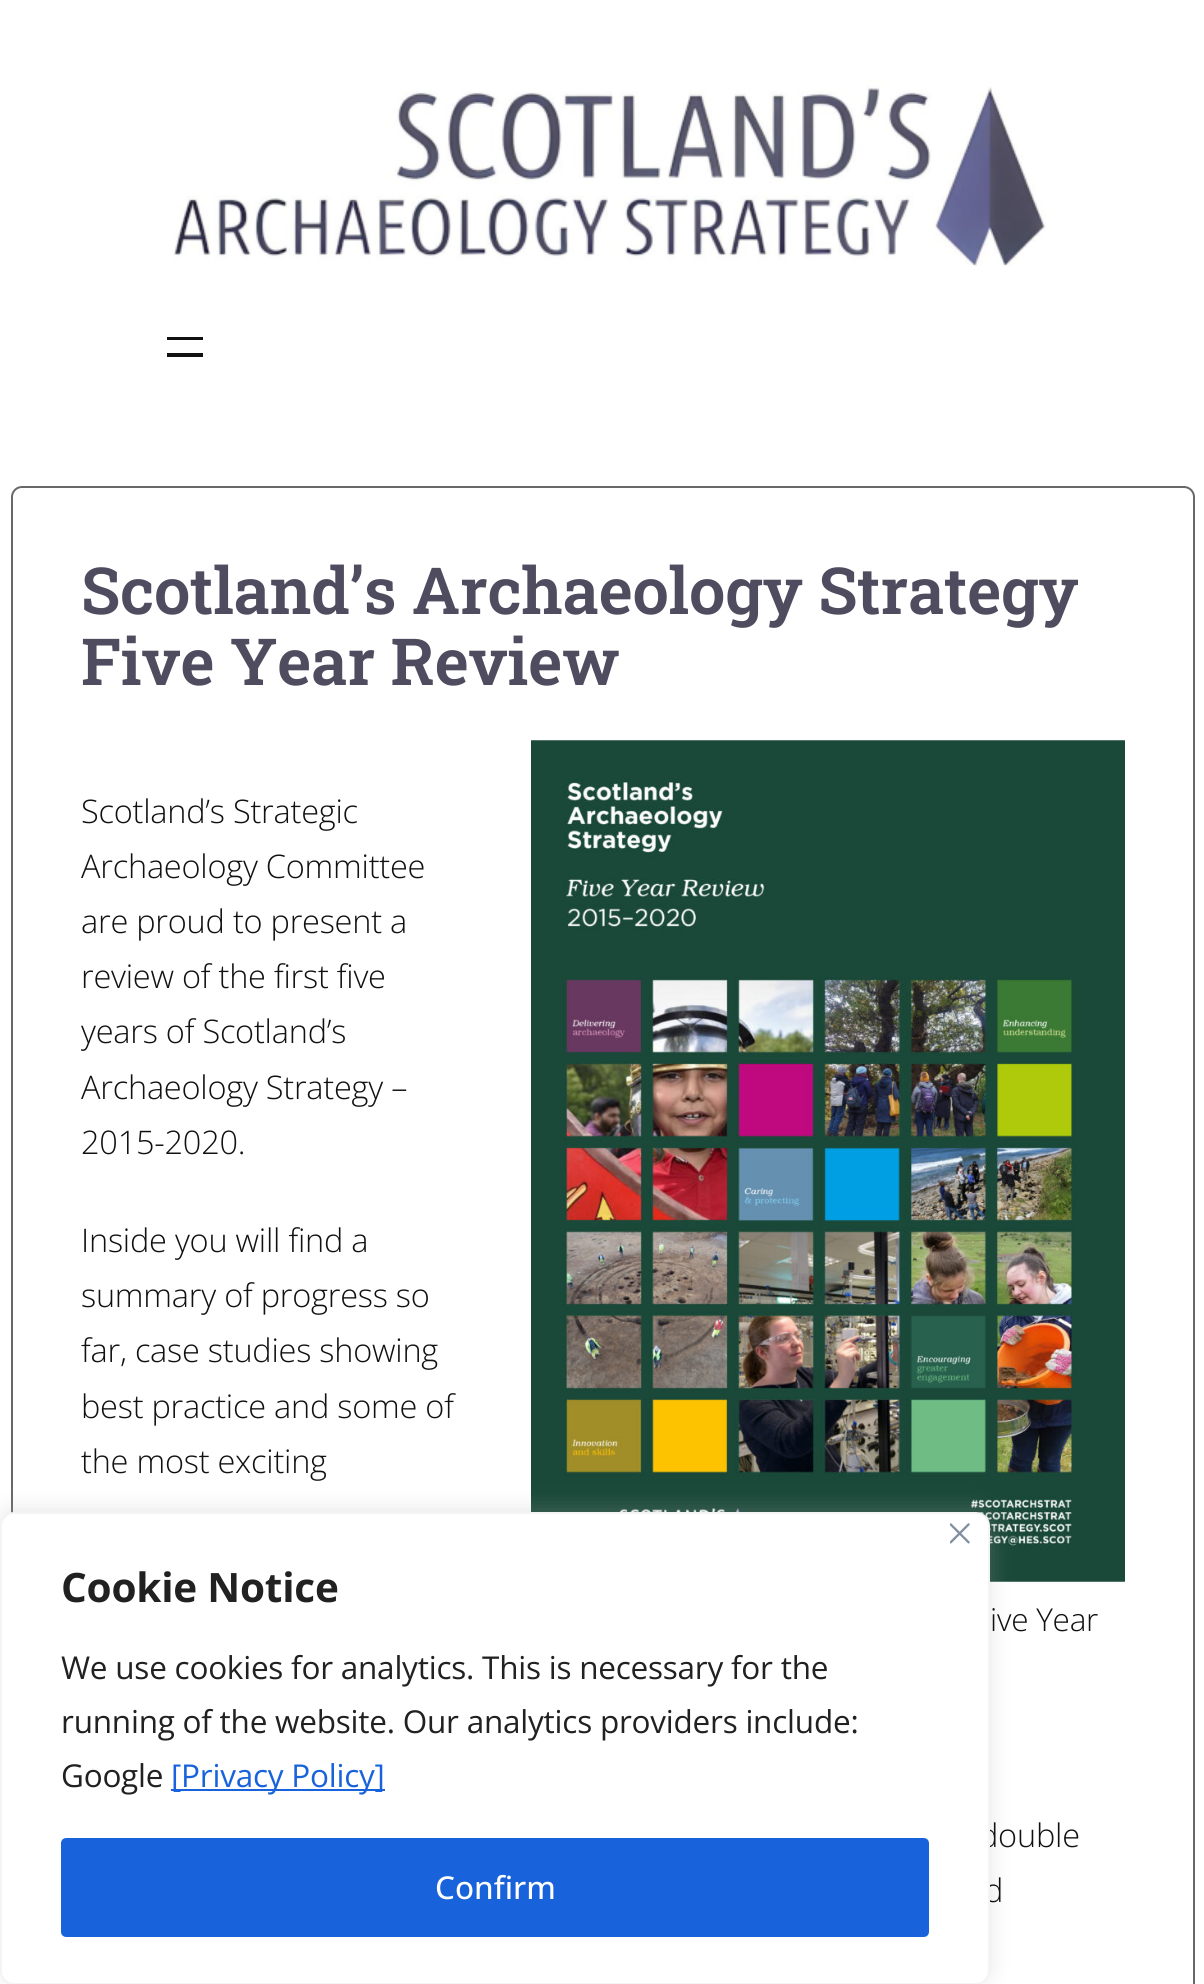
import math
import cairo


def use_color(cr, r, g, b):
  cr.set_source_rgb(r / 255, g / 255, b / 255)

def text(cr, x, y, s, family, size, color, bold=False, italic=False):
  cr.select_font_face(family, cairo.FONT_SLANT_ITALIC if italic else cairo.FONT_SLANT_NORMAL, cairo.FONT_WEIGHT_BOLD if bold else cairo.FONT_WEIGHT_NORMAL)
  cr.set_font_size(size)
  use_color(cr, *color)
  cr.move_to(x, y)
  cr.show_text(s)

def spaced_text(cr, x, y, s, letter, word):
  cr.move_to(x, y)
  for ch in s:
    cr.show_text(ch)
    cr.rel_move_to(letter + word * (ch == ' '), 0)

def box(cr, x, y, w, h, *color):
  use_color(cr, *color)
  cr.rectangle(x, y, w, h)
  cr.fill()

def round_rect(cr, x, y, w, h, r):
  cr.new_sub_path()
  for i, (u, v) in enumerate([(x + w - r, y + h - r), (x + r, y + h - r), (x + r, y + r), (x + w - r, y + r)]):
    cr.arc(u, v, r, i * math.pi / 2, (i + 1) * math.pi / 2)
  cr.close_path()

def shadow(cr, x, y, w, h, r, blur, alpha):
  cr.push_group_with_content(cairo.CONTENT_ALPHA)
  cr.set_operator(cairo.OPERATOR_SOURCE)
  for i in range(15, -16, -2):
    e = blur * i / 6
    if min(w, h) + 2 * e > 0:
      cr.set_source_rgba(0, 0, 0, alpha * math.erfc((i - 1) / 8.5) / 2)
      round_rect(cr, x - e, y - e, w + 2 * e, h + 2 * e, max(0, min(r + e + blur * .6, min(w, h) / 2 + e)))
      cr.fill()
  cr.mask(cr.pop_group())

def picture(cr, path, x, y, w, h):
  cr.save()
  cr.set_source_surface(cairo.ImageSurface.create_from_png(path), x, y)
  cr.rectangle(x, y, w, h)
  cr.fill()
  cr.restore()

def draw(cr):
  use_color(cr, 255, 255, 255)
  cr.paint()
  picture(cr, "img_01.png", 173, 80, 873, 187)
  box(cr, 167, 337, 36, 3, 17, 17, 17)
  box(cr, 167, 353, 36, 4, 17, 17, 17)
  round_rect(cr, 12, 487, 1182, 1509, 10)
  use_color(cr, 104, 104, 104)
  cr.stroke()
  picture(cr, "img_02.png", 531, 740, 594, 842)
  use_color(cr, 172, 171, 171)
  shadow(cr, 0, 1510, 990, 472, 14, 11, 0.3)
  cr.select_font_face("Roboto Slab SemiBold")
  cr.set_font_size(64.9)
  use_color(cr, 79, 76, 95)
  spaced_text(cr, 81, 614, "Scotland’s Archaeology Strategy", -0.23, 0)
  spaced_text(cr, 81, 685, "Five Year Review", -0.23, 0)
  cr.select_font_face("Open Sans Light")
  cr.set_font_size(32.5)
  use_color(cr, 17, 17, 17)
  spaced_text(cr, 81, 823, "Scotland’s Strategic", -0.23, 0)
  spaced_text(cr, 81, 878, "Archaeology Committee", -0.23, 0)
  spaced_text(cr, 81, 933, "are proud to present a", -0.23, 0)
  spaced_text(cr, 81, 988, "review of the first five", -0.23, 0)
  spaced_text(cr, 81, 1043, "years of Scotland’s", -0.23, 0)
  spaced_text(cr, 81, 1099, "Archaeology Strategy –", -0.23, 0)
  spaced_text(cr, 81, 1154, "2015-2020.", -0.23, 0)
  spaced_text(cr, 81, 1252, "Inside you will find a", -0.23, 0)
  spaced_text(cr, 81, 1307, "summary of progress so", -0.23, 0)
  spaced_text(cr, 81, 1362, "far, case studies showing", -0.23, 0)
  spaced_text(cr, 81, 1418, "best practice and some of", -0.23, 0)
  spaced_text(cr, 81, 1473, "the most exciting", -0.23, 0)
  cr.set_font_size(31.5)
  spaced_text(cr, 990, 1631, "ive Year", -0.23, 0)
  cr.set_font_size(32.5)
  spaced_text(cr, 979, 1847, "double", -0.23, 0)
  spaced_text(cr, 984, 1902, "d", -0.23, 0)
  use_color(cr, 255, 255, 255)
  round_rect(cr, 1, 1513, 988, 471, 13)
  cr.fill_preserve()
  use_color(cr, 244, 244, 244)
  cr.stroke()
  picture(cr, "img_03.png", 950, 1523, 20, 21)
  cr.select_font_face("Open Sans", cairo.FONT_SLANT_NORMAL, cairo.FONT_WEIGHT_BOLD)
  cr.set_font_size(40.5)
  use_color(cr, 33, 33, 33)
  spaced_text(cr, 61, 1602, "Cookie Notice", -0.23, 0)
  cr.select_font_face("Open Sans")
  cr.set_font_size(31.5)
  spaced_text(cr, 61, 1679, "We use cookies for analytics. This is necessary for the", -0.23, 0)
  spaced_text(cr, 61, 1733, "running of the website. Our analytics providers include:", -0.23, 0)
  spaced_text(cr, 61, 1787, "Google", -0.23, 0)
  box(cr, 171, 1789, 214, 2, 24, 99, 220)
  spaced_text(cr, 171, 1787, "[Privacy Policy]", -0.23, 0)
  round_rect(cr, 63.5, 1840.5, 863, 94, 2.5)
  cr.fill_preserve()
  cr.set_line_width(5)
  cr.stroke()
  text(cr, 435, 1899, "Confirm", "Open Sans Medium", 31.5, (255, 255, 255))


surface = cairo.ImageSurface(cairo.FORMAT_RGB24, 1204, 1984)
cr = cairo.Context(surface)
options = cairo.FontOptions()
options.set_hint_metrics(cairo.HINT_METRICS_OFF)
options.set_hint_style(cairo.HINT_STYLE_NONE)
cr.set_font_options(options)
cr.set_miter_limit(4)
draw(cr)
surface.write_to_png("out.png")
